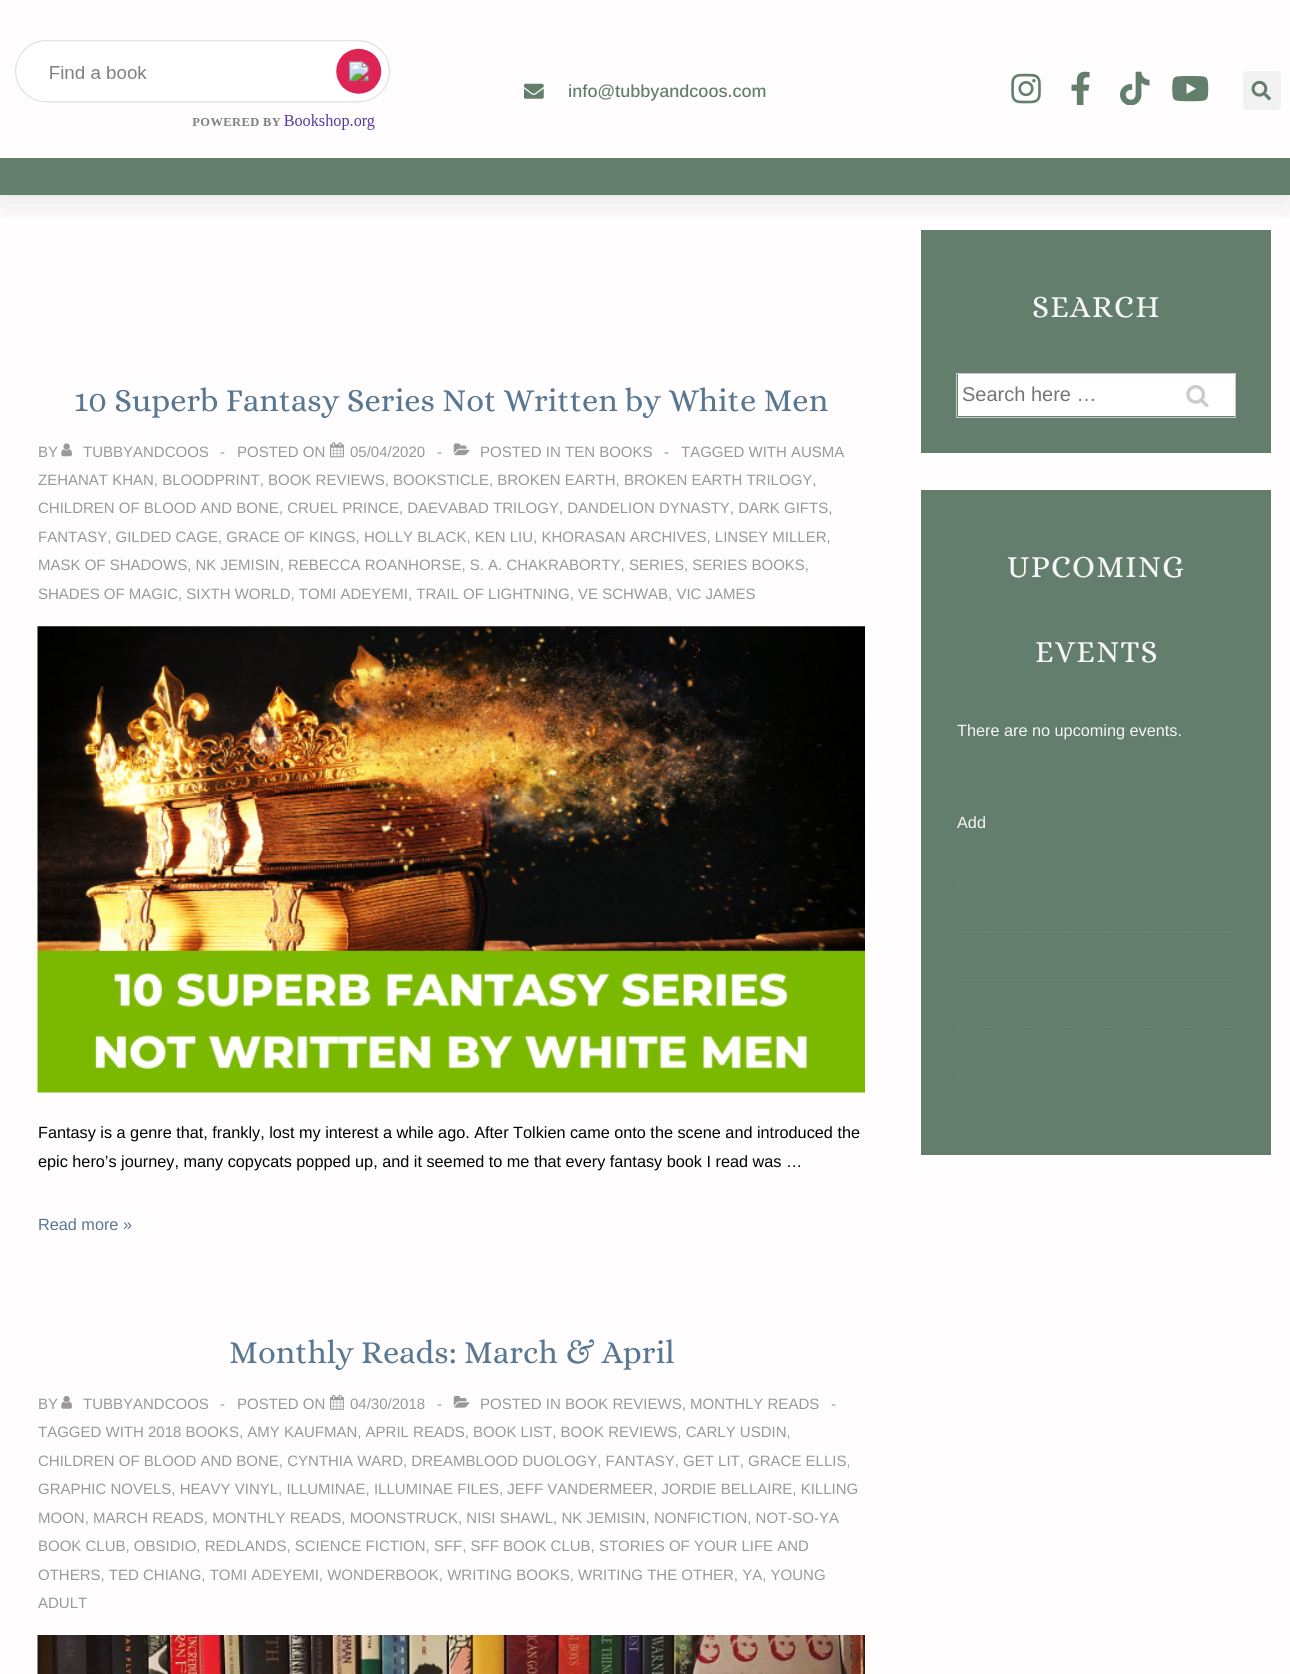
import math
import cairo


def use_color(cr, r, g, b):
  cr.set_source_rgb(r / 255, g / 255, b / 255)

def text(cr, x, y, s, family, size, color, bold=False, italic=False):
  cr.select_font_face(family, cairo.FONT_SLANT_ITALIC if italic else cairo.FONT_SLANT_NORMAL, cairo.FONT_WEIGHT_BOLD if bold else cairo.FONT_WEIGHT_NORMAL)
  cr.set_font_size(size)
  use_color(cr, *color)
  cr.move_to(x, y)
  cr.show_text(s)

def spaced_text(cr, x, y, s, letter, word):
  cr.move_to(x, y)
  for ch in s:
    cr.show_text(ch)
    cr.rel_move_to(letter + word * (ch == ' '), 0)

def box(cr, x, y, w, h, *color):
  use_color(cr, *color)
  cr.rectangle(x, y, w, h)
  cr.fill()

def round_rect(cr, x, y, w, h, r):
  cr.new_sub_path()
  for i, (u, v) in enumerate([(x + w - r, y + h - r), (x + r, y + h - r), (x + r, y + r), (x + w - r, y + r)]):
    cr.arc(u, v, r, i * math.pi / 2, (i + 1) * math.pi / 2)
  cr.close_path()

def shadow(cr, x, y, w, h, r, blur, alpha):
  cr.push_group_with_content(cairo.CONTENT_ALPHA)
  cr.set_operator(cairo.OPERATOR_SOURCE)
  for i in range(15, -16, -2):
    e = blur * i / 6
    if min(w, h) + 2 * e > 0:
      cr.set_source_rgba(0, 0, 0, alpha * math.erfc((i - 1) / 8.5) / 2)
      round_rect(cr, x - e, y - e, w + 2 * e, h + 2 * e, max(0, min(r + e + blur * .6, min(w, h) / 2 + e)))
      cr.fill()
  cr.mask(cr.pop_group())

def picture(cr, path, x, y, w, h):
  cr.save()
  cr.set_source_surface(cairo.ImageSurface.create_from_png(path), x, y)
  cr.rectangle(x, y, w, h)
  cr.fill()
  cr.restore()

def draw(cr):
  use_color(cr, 255, 253, 253)
  cr.paint()
  box(cr, 921, 230, 350, 223, 99, 126, 109)
  cr.save()
  cr.rectangle(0, 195, 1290, 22)
  cr.clip()
  use_color(cr, 0, 0, 0)
  shadow(cr, 0, 6, 1290, 195, 0, 19, 0.1)
  cr.restore()
  picture(cr, "img_01.png", 15, 40, 375, 90)
  picture(cr, "img_02.png", 524, 83, 20, 16)
  picture(cr, "img_03.png", 1011, 73, 30, 31)
  picture(cr, "img_04.png", 1071, 71, 19, 34)
  picture(cr, "img_05.png", 1120, 71, 30, 34)
  picture(cr, "img_06.png", 1172, 75, 37, 27)
  use_color(cr, 242, 242, 242)
  round_rect(cr, 1243, 71, 38, 39, 4)
  cr.fill()
  picture(cr, "img_07.png", 1251, 80, 20, 21)
  box(cr, 0, 158, 1290, 37, 99, 126, 109)
  picture(cr, "img_08.png", 61, 443, 11, 14)
  picture(cr, "img_09.png", 330, 442, 14, 16)
  picture(cr, "img_10.png", 453, 443, 17, 13)
  picture(cr, "img_11.png", 37, 626, 828, 467)
  picture(cr, "img_12.png", 61, 1395, 11, 14)
  picture(cr, "img_13.png", 330, 1394, 14, 16)
  picture(cr, "img_14.png", 453, 1395, 17, 13)
  picture(cr, "img_15.png", 37, 1635, 828, 39)
  cr.rectangle(956.5, 373.5, 279, 44)
  use_color(cr, 204, 204, 204)
  cr.set_line_width(1)
  cr.stroke()
  box(cr, 958, 374, 277, 42, 255, 255, 255)
  picture(cr, "img_16.png", 1186, 385, 23, 23)
  box(cr, 921, 490, 350, 665, 99, 126, 109)
  cr.new_path()
  cr.move_to(956, 838)
  cr.line_to(1236, 838)
  use_color(cr, 113, 135, 121)
  cr.set_line_width(1.2)
  cr.set_dash([1.25, 1.25])
  cr.stroke()
  cr.new_path()
  cr.move_to(956, 885.5)
  cr.line_to(1236, 885.5)
  cr.stroke()
  cr.new_path()
  cr.move_to(956, 932)
  cr.line_to(1236, 932)
  cr.stroke()
  cr.new_path()
  cr.move_to(956, 979.5)
  cr.line_to(1236, 979.5)
  cr.stroke()
  cr.new_path()
  cr.move_to(956, 1027)
  cr.line_to(1236, 1027)
  cr.stroke()
  cr.new_path()
  cr.move_to(956, 1074.5)
  cr.line_to(1236, 1074.5)
  cr.stroke()
  text(cr, 568, 97, "info@tubbyandcoos.com", "Arimo Medium", 17.5, (99, 126, 109))
  text(cr, 74, 411, "10 Superb Fantasy Series Not Written by White Men", "Alice", 32.5, (88, 119, 146))
  text(cr, 38, 457, "BY", "Arimo", 15, (153, 153, 153))
  text(cr, 83, 457, "TUBBYANDCOOS", "Arimo", 15, (153, 153, 153))
  text(cr, 220, 457, "-", "Arimo", 15, (153, 153, 153))
  text(cr, 237, 457, "POSTED ON", "Arimo", 15, (153, 153, 153))
  text(cr, 350, 457, "05/04/2020", "Arimo", 15, (153, 153, 153))
  text(cr, 437, 457, "-", "Arimo", 15, (153, 153, 153))
  text(cr, 480, 457, "POSTED IN TEN BOOKS", "Arimo", 15, (153, 153, 153))
  text(cr, 664, 457, "-", "Arimo", 15, (153, 153, 153))
  text(cr, 681, 457, "TAGGED WITH AUSMA", "Arimo", 15, (153, 153, 153))
  text(cr, 38, 485, "ZEHANAT KHAN, BLOODPRINT, BOOK REVIEWS, BOOKSTICLE, BROKEN EARTH, BROKEN EARTH TRILOGY,", "Arimo", 15, (153, 153, 153))
  text(cr, 38, 513, "CHILDREN OF BLOOD AND BONE, CRUEL PRINCE, DAEVABAD TRILOGY, DANDELION DYNASTY, DARK GIFTS,", "Arimo", 15, (153, 153, 153))
  text(cr, 38, 542, "FANTASY, GILDED CAGE, GRACE OF KINGS, HOLLY BLACK, KEN LIU, KHORASAN ARCHIVES, LINSEY MILLER,", "Arimo", 15, (153, 153, 153))
  text(cr, 38, 570, "MASK OF SHADOWS, NK JEMISIN, REBECCA ROANHORSE, S. A. CHAKRABORTY, SERIES, SERIES BOOKS,", "Arimo", 15, (153, 153, 153))
  text(cr, 38, 599, "SHADES OF MAGIC, SIXTH WORLD, TOMI ADEYEMI, TRAIL OF LIGHTNING, VE SCHWAB, VIC JAMES", "Arimo", 15, (153, 153, 153))
  text(cr, 38, 1138, "Fantasy is a genre that, frankly, lost my interest a while ago. After Tolkien came onto the scene and introduced the", "Arimo", 16.25, (1, 1, 1))
  text(cr, 38, 1167, "epic hero’s journey, many copycats popped up, and it seemed to me that every fantasy book I read was …", "Arimo", 16.25, (1, 1, 1))
  text(cr, 38, 1230, "Read more »", "Arimo", 16.25, (88, 119, 146))
  text(cr, 229, 1363, "Monthly Reads: March & April", "Alice", 32.5, (88, 119, 146))
  text(cr, 38, 1409, "BY", "Arimo", 15, (153, 153, 153))
  text(cr, 83, 1409, "TUBBYANDCOOS", "Arimo", 15, (153, 153, 153))
  text(cr, 220, 1409, "-", "Arimo", 15, (153, 153, 153))
  text(cr, 237, 1409, "POSTED ON", "Arimo", 15, (153, 153, 153))
  text(cr, 350, 1409, "04/30/2018", "Arimo", 15, (153, 153, 153))
  text(cr, 437, 1409, "-", "Arimo", 15, (153, 153, 153))
  text(cr, 480, 1409, "POSTED IN BOOK REVIEWS, MONTHLY READS", "Arimo", 15, (153, 153, 153))
  text(cr, 831, 1409, "-", "Arimo", 15, (153, 153, 153))
  text(cr, 38, 1437, "TAGGED WITH 2018 BOOKS, AMY KAUFMAN, APRIL READS, BOOK LIST, BOOK REVIEWS, CARLY USDIN,", "Arimo", 15, (153, 153, 153))
  text(cr, 38, 1466, "CHILDREN OF BLOOD AND BONE, CYNTHIA WARD, DREAMBLOOD DUOLOGY, FANTASY, GET LIT, GRACE ELLIS,", "Arimo", 15, (153, 153, 153))
  text(cr, 38, 1494, "GRAPHIC NOVELS, HEAVY VINYL, ILLUMINAE, ILLUMINAE FILES, JEFF VANDERMEER, JORDIE BELLAIRE, KILLING", "Arimo", 15, (153, 153, 153))
  text(cr, 38, 1523, "MOON, MARCH READS, MONTHLY READS, MOONSTRUCK, NISI SHAWL, NK JEMISIN, NONFICTION, NOT-SO-YA", "Arimo", 15, (153, 153, 153))
  text(cr, 38, 1551, "BOOK CLUB, OBSIDIO, REDLANDS, SCIENCE FICTION, SFF, SFF BOOK CLUB, STORIES OF YOUR LIFE AND", "Arimo", 15, (153, 153, 153))
  text(cr, 38, 1580, "OTHERS, TED CHIANG, TOMI ADEYEMI, WONDERBOOK, WRITING BOOKS, WRITING THE OTHER, YA, YOUNG", "Arimo", 15, (153, 153, 153))
  text(cr, 38, 1608, "ADULT", "Arimo", 15, (153, 153, 153))
  cr.select_font_face("Alice")
  cr.set_font_size(31.25)
  use_color(cr, 247, 247, 247)
  spaced_text(cr, 1032, 317, "SEARCH", 1.25, 0)
  text(cr, 962, 401, "Search here …", "Liberation Sans", 20, (117, 117, 117))
  cr.select_font_face("Alice")
  cr.set_font_size(31.25)
  use_color(cr, 247, 247, 247)
  spaced_text(cr, 1007, 577, "UPCOMING", 1.25, 0)
  spaced_text(cr, 1035, 662, "EVENTS", 1.25, 0)
  text(cr, 957, 736, "There are no upcoming events.", "Arimo", 16.25, (247, 247, 247))
  text(cr, 957, 828, "Add", "Arimo", 16.25, (247, 247, 247))


surface = cairo.ImageSurface(cairo.FORMAT_RGB24, 1290, 1674)
cr = cairo.Context(surface)
options = cairo.FontOptions()
options.set_hint_metrics(cairo.HINT_METRICS_OFF)
options.set_hint_style(cairo.HINT_STYLE_NONE)
cr.set_font_options(options)
cr.set_miter_limit(4)
draw(cr)
surface.write_to_png("out.png")
